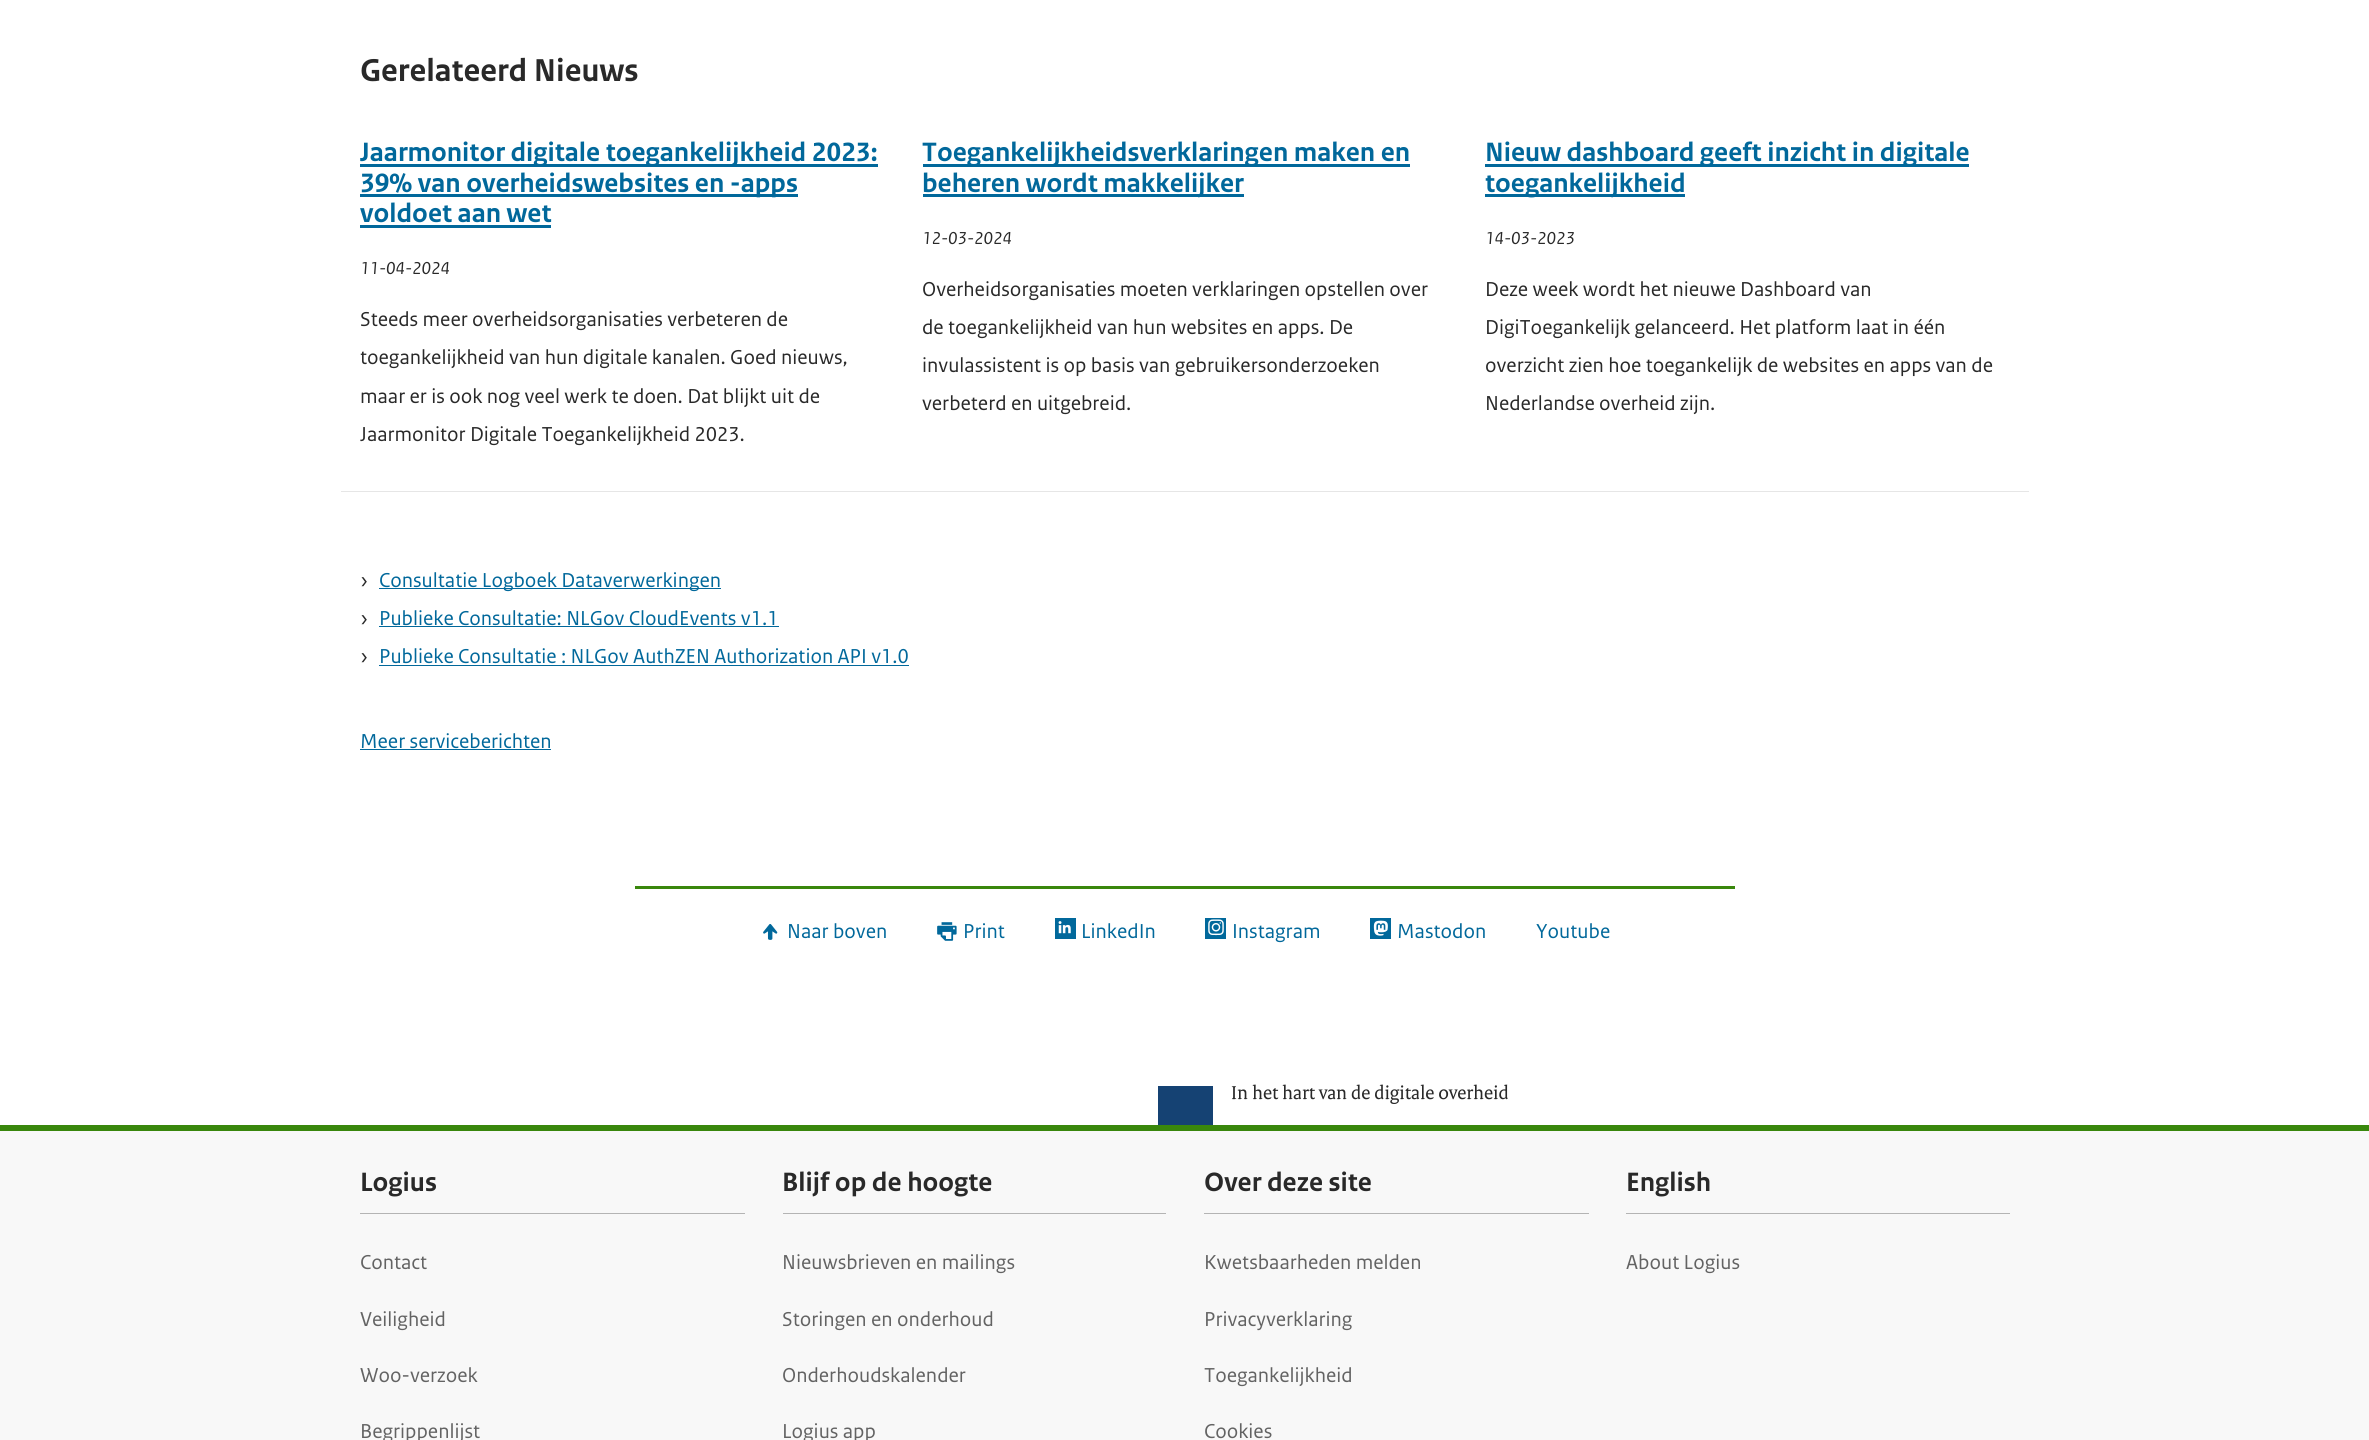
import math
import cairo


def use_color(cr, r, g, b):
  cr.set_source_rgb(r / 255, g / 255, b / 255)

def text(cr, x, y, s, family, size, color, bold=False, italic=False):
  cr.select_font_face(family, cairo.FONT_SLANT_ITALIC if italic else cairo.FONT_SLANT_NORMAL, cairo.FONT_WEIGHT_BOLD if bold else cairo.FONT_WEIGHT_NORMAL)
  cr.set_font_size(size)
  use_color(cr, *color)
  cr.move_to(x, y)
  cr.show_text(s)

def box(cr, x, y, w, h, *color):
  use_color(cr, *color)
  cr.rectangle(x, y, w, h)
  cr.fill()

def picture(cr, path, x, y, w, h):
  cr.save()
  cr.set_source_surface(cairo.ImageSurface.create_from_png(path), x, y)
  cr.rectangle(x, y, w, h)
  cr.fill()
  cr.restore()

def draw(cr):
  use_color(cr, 255, 255, 255)
  cr.paint()
  box(cr, 341, 491, 1688, 1, 230, 230, 230)
  box(cr, 360, 164, 518, 3, 1, 104, 155)
  box(cr, 360, 194, 438, 3, 1, 104, 155)
  box(cr, 360, 225, 191, 3, 1, 104, 155)
  box(cr, 923, 164, 487, 3, 1, 104, 155)
  box(cr, 923, 194, 321, 3, 1, 104, 155)
  box(cr, 1485, 164, 484, 3, 1, 104, 155)
  box(cr, 1485, 194, 200, 3, 1, 104, 155)
  box(cr, 379, 588, 342, 1, 1, 104, 155)
  box(cr, 379, 626, 400, 1, 1, 104, 155)
  box(cr, 379, 665, 530, 1, 1, 104, 155)
  box(cr, 360, 749, 191, 1, 1, 104, 155)
  box(cr, 635, 886, 1100, 3, 57, 135, 12)
  picture(cr, "img_01.png", 763, 924, 15, 16)
  picture(cr, "img_02.png", 937, 922, 20, 19)
  box(cr, 1055, 918, 21, 21, 1, 104, 155)
  picture(cr, "img_03.png", 1058, 921, 13, 13)
  box(cr, 1205, 918, 21, 21, 1, 104, 155)
  picture(cr, "img_04.png", 1208, 919, 16, 17)
  box(cr, 1370, 918, 21, 21, 1, 104, 155)
  picture(cr, "img_05.png", 1373, 920, 15, 16)
  box(cr, 1158, 1086, 55, 39, 21, 66, 115)
  box(cr, 0, 1131, 2369, 309, 248, 248, 248)
  box(cr, 0, 1125, 2369, 6, 57, 135, 12)
  box(cr, 360, 1213, 385, 1, 180, 180, 180)
  box(cr, 783, 1213, 383, 1, 180, 180, 180)
  box(cr, 1204, 1213, 385, 1, 180, 180, 180)
  box(cr, 1626, 1213, 384, 1, 180, 180, 180)
  text(cr, 360, 81, "Gerelateerd Nieuws", "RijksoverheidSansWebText", 33.25, (41, 41, 41), bold=True)
  text(cr, 360, 161, "Jaarmonitor digitale toegankelijkheid 2023:", "RijksoverheidSansWebText", 27.9, (1, 104, 155), bold=True)
  text(cr, 360, 192, "39% van overheidswebsites en -apps", "RijksoverheidSansWebText", 27.9, (1, 104, 155), bold=True)
  text(cr, 360, 222, "voldoet aan wet", "RijksoverheidSansWebText", 27.9, (1, 104, 155), bold=True)
  text(cr, 360, 274, "11-04-2024", "RijksoverheidSansWebText", 18.25, (41, 41, 41), italic=True)
  text(cr, 360, 326, "Steeds meer overheidsorganisaties verbeteren de", "RijksoverheidSansWebText", 21.25, (41, 41, 41))
  text(cr, 360, 364, "toegankelijkheid van hun digitale kanalen. Goed nieuws,", "RijksoverheidSansWebText", 21.25, (41, 41, 41))
  text(cr, 360, 403, "maar er is ook nog veel werk te doen. Dat blijkt uit de", "RijksoverheidSansWebText", 21.25, (41, 41, 41))
  text(cr, 360, 441, "Jaarmonitor Digitale Toegankelijkheid 2023.", "RijksoverheidSansWebText", 21.25, (41, 41, 41))
  text(cr, 922, 161, "Toegankelijkheidsverklaringen maken en", "RijksoverheidSansWebText", 27.9, (1, 104, 155), bold=True)
  text(cr, 922, 192, "beheren wordt makkelijker", "RijksoverheidSansWebText", 27.9, (1, 104, 155), bold=True)
  text(cr, 922, 244, "12-03-2024", "RijksoverheidSansWebText", 18.25, (41, 41, 41), italic=True)
  text(cr, 922, 296, "Overheidsorganisaties moeten verklaringen opstellen over", "RijksoverheidSansWebText", 21.25, (41, 41, 41))
  text(cr, 922, 334, "de toegankelijkheid van hun websites en apps. De", "RijksoverheidSansWebText", 21.25, (41, 41, 41))
  text(cr, 922, 372, "invulassistent is op basis van gebruikersonderzoeken", "RijksoverheidSansWebText", 21.25, (41, 41, 41))
  text(cr, 922, 410, "verbeterd en uitgebreid.", "RijksoverheidSansWebText", 21.25, (41, 41, 41))
  text(cr, 1485, 161, "Nieuw dashboard geeft inzicht in digitale", "RijksoverheidSansWebText", 27.9, (1, 104, 155), bold=True)
  text(cr, 1485, 192, "toegankelijkheid", "RijksoverheidSansWebText", 27.9, (1, 104, 155), bold=True)
  text(cr, 1485, 244, "14-03-2023", "RijksoverheidSansWebText", 18.25, (41, 41, 41), italic=True)
  text(cr, 1485, 296, "Deze week wordt het nieuwe Dashboard van", "RijksoverheidSansWebText", 21.25, (41, 41, 41))
  text(cr, 1485, 334, "DigiToegankelijk gelanceerd. Het platform laat in één", "RijksoverheidSansWebText", 21.25, (41, 41, 41))
  text(cr, 1485, 372, "overzicht zien hoe toegankelijk de websites en apps van de", "RijksoverheidSansWebText", 21.25, (41, 41, 41))
  text(cr, 1485, 410, "Nederlandse overheid zijn.", "RijksoverheidSansWebText", 21.25, (41, 41, 41))
  text(cr, 360, 587, "›", "RijksoverheidSansWebText", 21.25, (41, 41, 41))
  text(cr, 379, 587, "Consultatie Logboek Dataverwerkingen", "RijksoverheidSansWebText", 21.25, (1, 104, 155))
  text(cr, 360, 625, "›", "RijksoverheidSansWebText", 21.25, (41, 41, 41))
  text(cr, 379, 625, "Publieke Consultatie: NLGov CloudEvents v1.1", "RijksoverheidSansWebText", 21.25, (1, 104, 155))
  text(cr, 360, 663, "›", "RijksoverheidSansWebText", 21.25, (41, 41, 41))
  text(cr, 379, 663, "Publieke Consultatie : NLGov AuthZEN Authorization API v1.0", "RijksoverheidSansWebText", 21.25, (1, 104, 155))
  text(cr, 360, 748, "Meer serviceberichten", "RijksoverheidSansWebText", 21.25, (1, 104, 155))
  text(cr, 787, 938, "Naar boven", "RijksoverheidSansWebText", 21.25, (1, 104, 155))
  text(cr, 963, 938, "Print", "RijksoverheidSansWebText", 21.25, (1, 104, 155))
  text(cr, 1081, 938, "LinkedIn", "RijksoverheidSansWebText", 21.25, (1, 104, 155))
  text(cr, 1232, 938, "Instagram", "RijksoverheidSansWebText", 21.25, (1, 104, 155))
  text(cr, 1397, 938, "Mastodon", "RijksoverheidSansWebText", 21.25, (1, 104, 155))
  text(cr, 1536, 938, "Youtube", "RijksoverheidSansWebText", 21.25, (1, 104, 155))
  text(cr, 1231, 1099, "In het hart van de digitale overheid", "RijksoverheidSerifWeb", 20, (41, 41, 41))
  text(cr, 360, 1191, "Logius", "RijksoverheidSansWebText", 27.9, (41, 41, 41), bold=True)
  text(cr, 360, 1269, "Contact", "RijksoverheidSansWebText", 21.25, (99, 99, 99))
  text(cr, 360, 1326, "Veiligheid", "RijksoverheidSansWebText", 21.25, (99, 99, 99))
  text(cr, 360, 1382, "Woo-verzoek", "RijksoverheidSansWebText", 21.25, (99, 99, 99))
  text(cr, 360, 1438, "Begrippenlijst", "RijksoverheidSansWebText", 21.25, (99, 99, 99))
  text(cr, 782, 1191, "Blijf op de hoogte", "RijksoverheidSansWebText", 27.9, (41, 41, 41), bold=True)
  text(cr, 782, 1269, "Nieuwsbrieven en mailings", "RijksoverheidSansWebText", 21.25, (99, 99, 99))
  text(cr, 782, 1326, "Storingen en onderhoud", "RijksoverheidSansWebText", 21.25, (99, 99, 99))
  text(cr, 782, 1382, "Onderhoudskalender", "RijksoverheidSansWebText", 21.25, (99, 99, 99))
  text(cr, 782, 1438, "Logius app", "RijksoverheidSansWebText", 21.25, (99, 99, 99))
  text(cr, 1204, 1191, "Over deze site", "RijksoverheidSansWebText", 27.9, (41, 41, 41), bold=True)
  text(cr, 1204, 1269, "Kwetsbaarheden melden", "RijksoverheidSansWebText", 21.25, (99, 99, 99))
  text(cr, 1204, 1326, "Privacyverklaring", "RijksoverheidSansWebText", 21.25, (99, 99, 99))
  text(cr, 1204, 1382, "Toegankelijkheid", "RijksoverheidSansWebText", 21.25, (99, 99, 99))
  text(cr, 1204, 1438, "Cookies", "RijksoverheidSansWebText", 21.25, (99, 99, 99))
  text(cr, 1626, 1191, "English", "RijksoverheidSansWebText", 27.9, (41, 41, 41), bold=True)
  text(cr, 1626, 1269, "About Logius", "RijksoverheidSansWebText", 21.25, (99, 99, 99))


surface = cairo.ImageSurface(cairo.FORMAT_RGB24, 2369, 1440)
cr = cairo.Context(surface)
options = cairo.FontOptions()
options.set_hint_metrics(cairo.HINT_METRICS_OFF)
options.set_hint_style(cairo.HINT_STYLE_NONE)
cr.set_font_options(options)
cr.set_miter_limit(4)
draw(cr)
surface.write_to_png("out.png")
